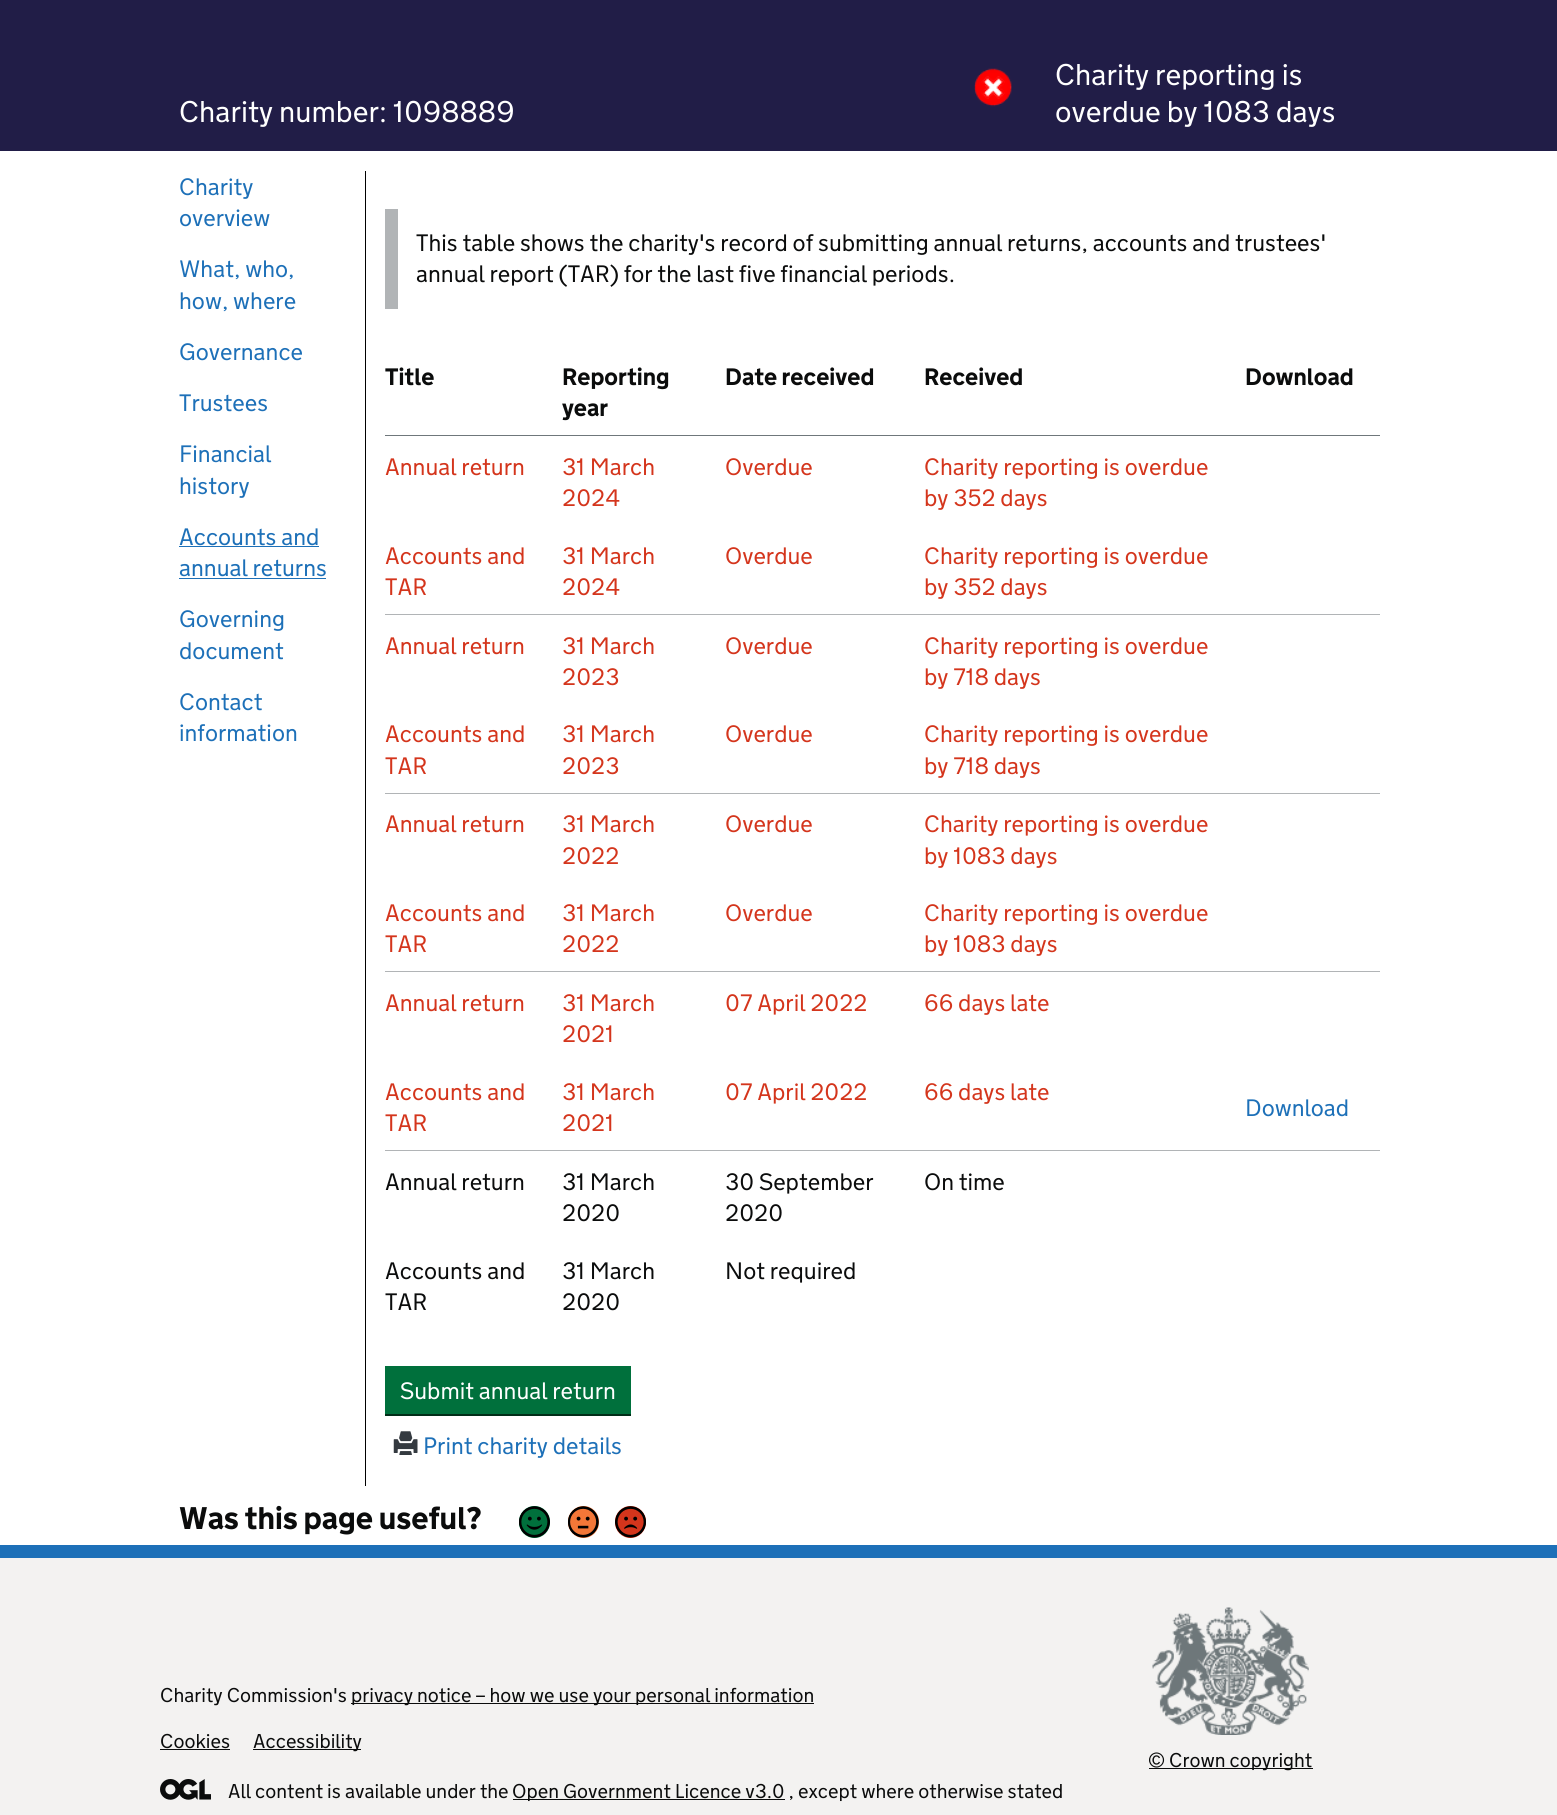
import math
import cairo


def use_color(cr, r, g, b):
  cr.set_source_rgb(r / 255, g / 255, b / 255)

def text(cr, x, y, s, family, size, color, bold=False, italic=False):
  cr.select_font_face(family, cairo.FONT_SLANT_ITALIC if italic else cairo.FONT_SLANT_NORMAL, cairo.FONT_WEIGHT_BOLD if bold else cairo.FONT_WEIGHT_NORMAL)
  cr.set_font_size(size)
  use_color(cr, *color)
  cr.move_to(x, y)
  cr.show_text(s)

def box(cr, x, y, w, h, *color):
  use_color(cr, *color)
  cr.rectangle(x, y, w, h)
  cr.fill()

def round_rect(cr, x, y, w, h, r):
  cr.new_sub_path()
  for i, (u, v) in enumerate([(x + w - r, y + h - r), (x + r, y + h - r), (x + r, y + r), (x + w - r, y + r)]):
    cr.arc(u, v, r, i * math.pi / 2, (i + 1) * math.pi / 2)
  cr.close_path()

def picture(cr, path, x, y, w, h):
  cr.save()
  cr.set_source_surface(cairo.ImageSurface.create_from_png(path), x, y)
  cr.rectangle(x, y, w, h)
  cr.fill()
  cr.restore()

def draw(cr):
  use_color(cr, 255, 255, 255)
  cr.paint()
  box(cr, 0, 0, 1557, 151, 33, 29, 71)
  picture(cr, "img_01.png", 974, 68, 38, 39)
  box(cr, 365, 171, 1, 1315, 0, 0, 0)
  box(cr, 179, 546, 140, 1, 29, 112, 184)
  box(cr, 179, 578, 147, 1, 29, 112, 184)
  box(cr, 385, 209, 13, 100, 177, 180, 182)
  box(cr, 385, 435, 995, 1, 111, 119, 123)
  box(cr, 385, 614, 995, 1, 177, 180, 182)
  box(cr, 385, 793, 995, 1, 177, 180, 182)
  box(cr, 385, 971, 995, 1, 177, 180, 182)
  box(cr, 385, 1150, 995, 1, 177, 180, 182)
  box(cr, 385, 1414, 246, 2, 0, 45, 24)
  box(cr, 385, 1366, 246, 48, 0, 112, 60)
  picture(cr, "img_02.png", 393, 1431, 25, 24)
  round_rect(cr, 519, 1506, 31, 32, 15.5)
  cr.fill()
  picture(cr, "img_03.png", 519, 1506, 31, 32)
  use_color(cr, 244, 119, 56)
  round_rect(cr, 568, 1506, 31, 32, 15.5)
  cr.fill()
  picture(cr, "img_04.png", 568, 1506, 31, 32)
  use_color(cr, 212, 53, 28)
  round_rect(cr, 615, 1506, 31, 32, 15.5)
  cr.fill()
  picture(cr, "img_05.png", 615, 1506, 31, 32)
  box(cr, 0, 1558, 1557, 257, 243, 242, 241)
  box(cr, 0, 1545, 1557, 13, 29, 112, 184)
  box(cr, 351, 1703, 463, 1, 11, 12, 12)
  box(cr, 160, 1749, 70, 1, 11, 12, 12)
  box(cr, 253, 1749, 108, 1, 11, 12, 12)
  picture(cr, "img_06.png", 160, 1779, 51, 21)
  box(cr, 513, 1799, 272, 1, 11, 12, 12)
  picture(cr, "img_07.png", 1152, 1607, 157, 128)
  box(cr, 1149, 1768, 164, 1, 11, 12, 12)
  text(cr, 179, 122, "Charity number: 1098889", "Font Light", 30, (255, 255, 255))
  text(cr, 1055, 85, "Charity reporting is", "Font Light", 30, (255, 255, 255))
  text(cr, 1055, 122, "overdue by 1083 days", "Font Light", 30, (255, 255, 255))
  text(cr, 179, 195, "Charity", "Font Light", 23.75, (29, 112, 184))
  text(cr, 179, 226, "overview", "Font Light", 23.75, (29, 112, 184))
  text(cr, 179, 277, "What, who,", "Font Light", 23.75, (29, 112, 184))
  text(cr, 179, 309, "how, where", "Font Light", 23.75, (29, 112, 184))
  text(cr, 179, 360, "Governance", "Font Light", 23.75, (29, 112, 184))
  text(cr, 179, 411, "Trustees", "Font Light", 23.75, (29, 112, 184))
  text(cr, 179, 462, "Financial", "Font Light", 23.75, (29, 112, 184))
  text(cr, 179, 494, "history", "Font Light", 23.75, (29, 112, 184))
  text(cr, 179, 545, "Accounts and", "Font Light", 23.75, (29, 112, 184))
  text(cr, 179, 576, "annual returns", "Font Light", 23.75, (29, 112, 184))
  text(cr, 179, 627, "Governing", "Font Light", 23.75, (29, 112, 184))
  text(cr, 179, 659, "document", "Font Light", 23.75, (29, 112, 184))
  text(cr, 179, 710, "Contact", "Font Light", 23.75, (29, 112, 184))
  text(cr, 179, 741, "information", "Font Light", 23.75, (29, 112, 184))
  text(cr, 416, 251, "This table shows the charity's record of submitting annual returns, accounts and trustees'", "Font Light", 23.75, (11, 12, 12))
  text(cr, 416, 282, "annual report (TAR) for the last five financial periods.", "Font Light", 23.75, (11, 12, 12))
  text(cr, 385, 385, "Title", "Font", 23.75, (11, 12, 12), bold=True)
  text(cr, 562, 385, "Reporting", "Font", 23.75, (11, 12, 12), bold=True)
  text(cr, 562, 416, "year", "Font", 23.75, (11, 12, 12), bold=True)
  text(cr, 725, 385, "Date received", "Font", 23.75, (11, 12, 12), bold=True)
  text(cr, 924, 385, "Received", "Font", 23.75, (11, 12, 12), bold=True)
  text(cr, 1245, 385, "Download", "Font", 23.75, (11, 12, 12), bold=True)
  text(cr, 385, 475, "Annual return", "Font Light", 23.75, (212, 53, 28))
  text(cr, 562, 475, "31 March", "Font Light", 23.75, (212, 53, 28))
  text(cr, 562, 506, "2024", "Font Light", 23.75, (212, 53, 28))
  text(cr, 725, 475, "Overdue", "Font Light", 23.75, (212, 53, 28))
  text(cr, 924, 475, "Charity reporting is overdue", "Font Light", 23.75, (212, 53, 28))
  text(cr, 924, 506, "by 352 days", "Font Light", 23.75, (212, 53, 28))
  text(cr, 385, 564, "Accounts and", "Font Light", 23.75, (212, 53, 28))
  text(cr, 385, 595, "TAR", "Font Light", 23.75, (212, 53, 28))
  text(cr, 562, 564, "31 March", "Font Light", 23.75, (212, 53, 28))
  text(cr, 562, 595, "2024", "Font Light", 23.75, (212, 53, 28))
  text(cr, 725, 564, "Overdue", "Font Light", 23.75, (212, 53, 28))
  text(cr, 924, 564, "Charity reporting is overdue", "Font Light", 23.75, (212, 53, 28))
  text(cr, 924, 595, "by 352 days", "Font Light", 23.75, (212, 53, 28))
  text(cr, 385, 654, "Annual return", "Font Light", 23.75, (212, 53, 28))
  text(cr, 562, 654, "31 March", "Font Light", 23.75, (212, 53, 28))
  text(cr, 562, 685, "2023", "Font Light", 23.75, (212, 53, 28))
  text(cr, 725, 654, "Overdue", "Font Light", 23.75, (212, 53, 28))
  text(cr, 924, 654, "Charity reporting is overdue", "Font Light", 23.75, (212, 53, 28))
  text(cr, 924, 685, "by 718 days", "Font Light", 23.75, (212, 53, 28))
  text(cr, 385, 742, "Accounts and", "Font Light", 23.75, (212, 53, 28))
  text(cr, 385, 774, "TAR", "Font Light", 23.75, (212, 53, 28))
  text(cr, 562, 742, "31 March", "Font Light", 23.75, (212, 53, 28))
  text(cr, 562, 774, "2023", "Font Light", 23.75, (212, 53, 28))
  text(cr, 725, 742, "Overdue", "Font Light", 23.75, (212, 53, 28))
  text(cr, 924, 742, "Charity reporting is overdue", "Font Light", 23.75, (212, 53, 28))
  text(cr, 924, 774, "by 718 days", "Font Light", 23.75, (212, 53, 28))
  text(cr, 385, 832, "Annual return", "Font Light", 23.75, (212, 53, 28))
  text(cr, 562, 832, "31 March", "Font Light", 23.75, (212, 53, 28))
  text(cr, 562, 864, "2022", "Font Light", 23.75, (212, 53, 28))
  text(cr, 725, 832, "Overdue", "Font Light", 23.75, (212, 53, 28))
  text(cr, 924, 832, "Charity reporting is overdue", "Font Light", 23.75, (212, 53, 28))
  text(cr, 924, 864, "by 1083 days", "Font Light", 23.75, (212, 53, 28))
  text(cr, 385, 921, "Accounts and", "Font Light", 23.75, (212, 53, 28))
  text(cr, 385, 952, "TAR", "Font Light", 23.75, (212, 53, 28))
  text(cr, 562, 921, "31 March", "Font Light", 23.75, (212, 53, 28))
  text(cr, 562, 952, "2022", "Font Light", 23.75, (212, 53, 28))
  text(cr, 725, 921, "Overdue", "Font Light", 23.75, (212, 53, 28))
  text(cr, 924, 921, "Charity reporting is overdue", "Font Light", 23.75, (212, 53, 28))
  text(cr, 924, 952, "by 1083 days", "Font Light", 23.75, (212, 53, 28))
  text(cr, 385, 1011, "Annual return", "Font Light", 23.75, (212, 53, 28))
  text(cr, 562, 1011, "31 March", "Font Light", 23.75, (212, 53, 28))
  text(cr, 562, 1042, "2021", "Font Light", 23.75, (212, 53, 28))
  text(cr, 725, 1011, "07 April 2022", "Font Light", 23.75, (212, 53, 28))
  text(cr, 924, 1011, "66 days late", "Font Light", 23.75, (212, 53, 28))
  text(cr, 385, 1100, "Accounts and", "Font Light", 23.75, (212, 53, 28))
  text(cr, 385, 1131, "TAR", "Font Light", 23.75, (212, 53, 28))
  text(cr, 562, 1100, "31 March", "Font Light", 23.75, (212, 53, 28))
  text(cr, 562, 1131, "2021", "Font Light", 23.75, (212, 53, 28))
  text(cr, 725, 1100, "07 April 2022", "Font Light", 23.75, (212, 53, 28))
  text(cr, 924, 1100, "66 days late", "Font Light", 23.75, (212, 53, 28))
  text(cr, 1245, 1116, "Download", "Font Light", 23.75, (29, 112, 184))
  text(cr, 385, 1190, "Annual return", "Font Light", 23.75, (11, 12, 12))
  text(cr, 562, 1190, "31 March", "Font Light", 23.75, (11, 12, 12))
  text(cr, 562, 1221, "2020", "Font Light", 23.75, (11, 12, 12))
  text(cr, 725, 1190, "30 September", "Font Light", 23.75, (11, 12, 12))
  text(cr, 725, 1221, "2020", "Font Light", 23.75, (11, 12, 12))
  text(cr, 924, 1190, "On time", "Font Light", 23.75, (11, 12, 12))
  text(cr, 385, 1279, "Accounts and", "Font Light", 23.75, (11, 12, 12))
  text(cr, 385, 1310, "TAR", "Font Light", 23.75, (11, 12, 12))
  text(cr, 562, 1279, "31 March", "Font Light", 23.75, (11, 12, 12))
  text(cr, 562, 1310, "2020", "Font Light", 23.75, (11, 12, 12))
  text(cr, 725, 1279, "Not required", "Font Light", 23.75, (11, 12, 12))
  text(cr, 400, 1399, "Submit annual return", "Font Light", 23.75, (255, 255, 255))
  text(cr, 423, 1454, "Print charity details", "Font Light", 23.75, (29, 112, 184))
  text(cr, 179, 1529, "Was this page useful?", "Font", 31.25, (11, 12, 12), bold=True)
  text(cr, 160, 1702, "Charity Commission's", "Font Light", 20, (11, 12, 12))
  text(cr, 351, 1702, "privacy notice – how we use your personal information", "Font Light", 20, (11, 12, 12))
  text(cr, 160, 1748, "Cookies", "Font Light", 20, (11, 12, 12))
  text(cr, 253, 1748, "Accessibility", "Font Light", 20, (11, 12, 12))
  text(cr, 228, 1798, "All content is available under the", "Font Light", 20, (11, 12, 12))
  text(cr, 512, 1798, "Open Government Licence v3.0 , except where otherwise stated", "Font Light", 20, (11, 12, 12))
  text(cr, 1148, 1767, "© Crown copyright", "Font Light", 20, (11, 12, 12))


surface = cairo.ImageSurface(cairo.FORMAT_RGB24, 1557, 1815)
cr = cairo.Context(surface)
options = cairo.FontOptions()
options.set_hint_metrics(cairo.HINT_METRICS_OFF)
options.set_hint_style(cairo.HINT_STYLE_NONE)
cr.set_font_options(options)
cr.set_miter_limit(4)
draw(cr)
surface.write_to_png("out.png")
